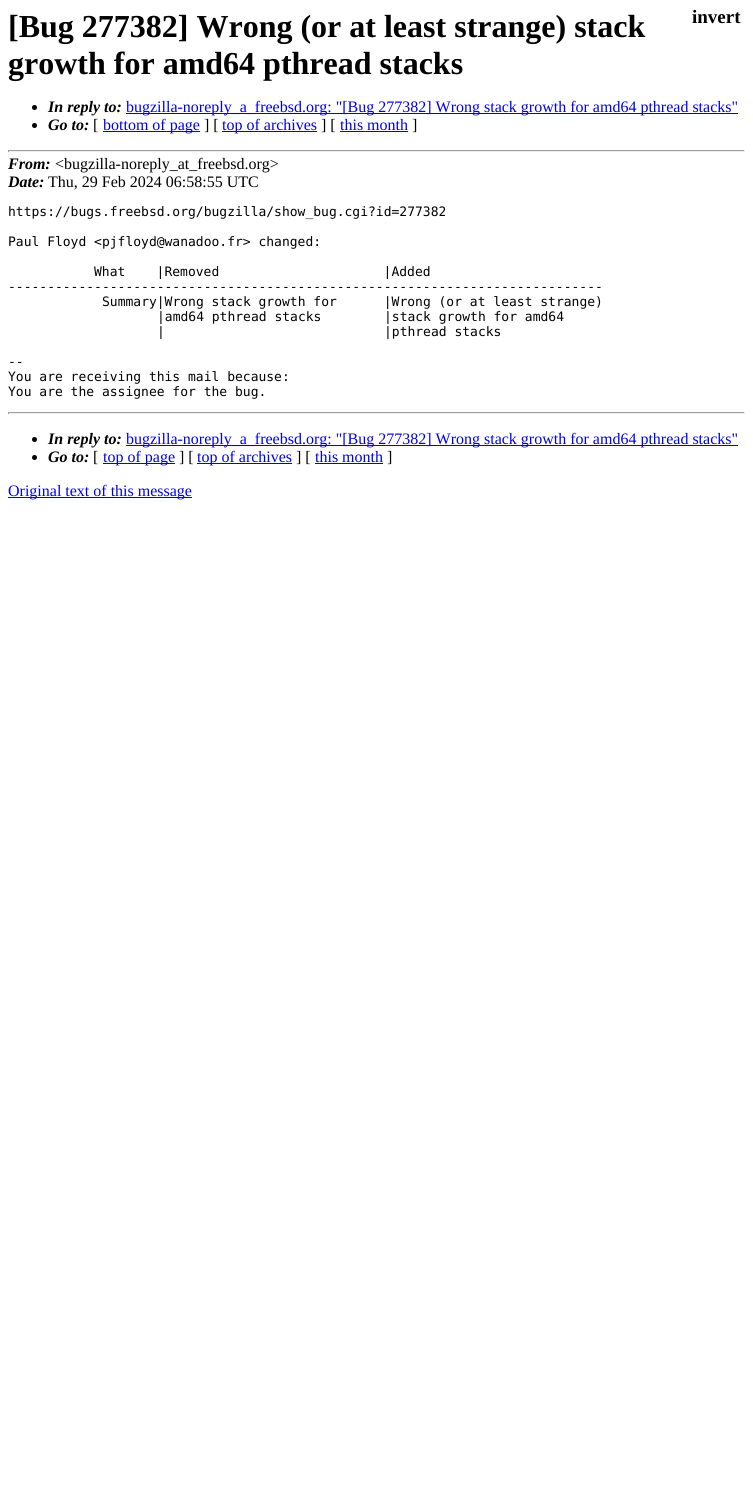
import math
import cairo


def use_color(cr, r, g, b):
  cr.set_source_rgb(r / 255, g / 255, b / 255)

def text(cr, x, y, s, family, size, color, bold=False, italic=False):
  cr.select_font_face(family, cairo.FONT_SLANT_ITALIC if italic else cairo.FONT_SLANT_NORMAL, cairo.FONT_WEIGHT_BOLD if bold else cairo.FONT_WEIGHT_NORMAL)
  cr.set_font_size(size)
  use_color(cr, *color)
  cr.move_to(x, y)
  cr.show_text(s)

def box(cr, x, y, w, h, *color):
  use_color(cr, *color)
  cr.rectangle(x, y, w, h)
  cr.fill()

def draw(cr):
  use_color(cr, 255, 255, 255)
  cr.paint()
  use_color(cr, 0, 0, 0)
  cr.arc(34.5, 107.5, 2.5, 0, 2 * math.pi)
  cr.fill()
  box(cr, 126, 113, 612, 1, 0, 0, 238)
  use_color(cr, 0, 0, 0)
  cr.arc(34.5, 125.5, 2.5, 0, 2 * math.pi)
  cr.fill()
  box(cr, 103, 131, 97, 1, 0, 0, 238)
  box(cr, 222, 131, 95, 1, 0, 0, 238)
  box(cr, 340, 131, 68, 1, 0, 0, 238)
  box(cr, 8, 150, 737, 1, 159, 159, 159)
  box(cr, 744, 150, 1, 2, 238, 238, 238)
  box(cr, 8, 151, 737, 1, 238, 238, 238)
  box(cr, 8, 150, 1, 2, 159, 159, 159)
  box(cr, 8, 412, 737, 1, 159, 159, 159)
  box(cr, 744, 412, 1, 2, 238, 238, 238)
  box(cr, 8, 413, 737, 1, 238, 238, 238)
  box(cr, 8, 412, 1, 2, 159, 159, 159)
  use_color(cr, 0, 0, 0)
  cr.arc(34.5, 439.5, 2.5, 0, 2 * math.pi)
  cr.fill()
  box(cr, 126, 445, 612, 1, 0, 0, 238)
  use_color(cr, 0, 0, 0)
  cr.arc(34.5, 457.5, 2.5, 0, 2 * math.pi)
  cr.fill()
  box(cr, 103, 463, 72, 1, 0, 0, 238)
  box(cr, 197, 463, 95, 1, 0, 0, 238)
  box(cr, 315, 463, 68, 1, 0, 0, 238)
  box(cr, 8, 497, 184, 1, 0, 0, 238)
  text(cr, 692, 23, "invert", "Liberation Serif", 19, (0, 0, 0), bold=True)
  text(cr, 8, 37, "[Bug 277382] Wrong (or at least strange) stack", "Liberation Serif", 32, (0, 0, 0), bold=True)
  text(cr, 8, 74, "growth for amd64 pthread stacks", "Liberation Serif", 32, (0, 0, 0), bold=True)
  text(cr, 48, 112, "In reply to:", "Liberation Serif", 16, (0, 0, 0), bold=True, italic=True)
  text(cr, 126, 112, "bugzilla-noreply_a_freebsd.org: \"[Bug 277382] Wrong stack growth for amd64 pthread stacks\"", "Liberation Serif", 16, (0, 0, 238))
  text(cr, 48, 130, "Go to:", "Liberation Serif", 16, (0, 0, 0), bold=True, italic=True)
  text(cr, 93, 130, "[", "Liberation Serif", 16, (0, 0, 0))
  text(cr, 103, 130, "bottom of page", "Liberation Serif", 16, (0, 0, 238))
  text(cr, 204, 130, "] [", "Liberation Serif", 16, (0, 0, 0))
  text(cr, 222, 130, "top of archives", "Liberation Serif", 16, (0, 0, 238))
  text(cr, 321, 130, "] [", "Liberation Serif", 16, (0, 0, 0))
  text(cr, 340, 130, "this month", "Liberation Serif", 16, (0, 0, 238))
  text(cr, 412, 130, "]", "Liberation Serif", 16, (0, 0, 0))
  text(cr, 8, 169, "From:", "Liberation Serif", 16, (0, 0, 0), bold=True, italic=True)
  text(cr, 55, 169, "<bugzilla-noreply_at_freebsd.org>", "Liberation Serif", 16, (0, 0, 0))
  text(cr, 8, 187, "Date:", "Liberation Serif", 16, (0, 0, 0), bold=True, italic=True)
  text(cr, 48, 187, "Thu, 29 Feb 2024 06:58:55 UTC", "Liberation Serif", 16, (0, 0, 0))
  text(cr, 8, 216, "https://bugs.freebsd.org/bugzilla/show_bug.cgi?id=277382", "DejaVu Sans Mono", 13, (0, 0, 0))
  text(cr, 8, 246, "Paul Floyd <pjfloyd@wanadoo.fr> changed:", "DejaVu Sans Mono", 13, (0, 0, 0))
  text(cr, 94, 276, "What    |Removed                     |Added", "DejaVu Sans Mono", 13, (0, 0, 0))
  text(cr, 8, 291, "----------------------------------------------------------------------------", "DejaVu Sans Mono", 13, (0, 0, 0))
  text(cr, 102, 306, "Summary|Wrong stack growth for      |Wrong (or at least strange)", "DejaVu Sans Mono", 13, (0, 0, 0))
  text(cr, 157, 321, "|amd64 pthread stacks        |stack growth for amd64", "DejaVu Sans Mono", 13, (0, 0, 0))
  text(cr, 157, 336, "|                            |pthread stacks", "DejaVu Sans Mono", 13, (0, 0, 0))
  text(cr, 8, 366, "--", "DejaVu Sans Mono", 13, (0, 0, 0))
  text(cr, 8, 381, "You are receiving this mail because:", "DejaVu Sans Mono", 13, (0, 0, 0))
  text(cr, 8, 396, "You are the assignee for the bug.", "DejaVu Sans Mono", 13, (0, 0, 0))
  text(cr, 48, 444, "In reply to:", "Liberation Serif", 16, (0, 0, 0), bold=True, italic=True)
  text(cr, 126, 444, "bugzilla-noreply_a_freebsd.org: \"[Bug 277382] Wrong stack growth for amd64 pthread stacks\"", "Liberation Serif", 16, (0, 0, 238))
  text(cr, 48, 462, "Go to:", "Liberation Serif", 16, (0, 0, 0), bold=True, italic=True)
  text(cr, 93, 462, "[", "Liberation Serif", 16, (0, 0, 0))
  text(cr, 103, 462, "top of page", "Liberation Serif", 16, (0, 0, 238))
  text(cr, 179, 462, "] [", "Liberation Serif", 16, (0, 0, 0))
  text(cr, 197, 462, "top of archives", "Liberation Serif", 16, (0, 0, 238))
  text(cr, 296, 462, "] [", "Liberation Serif", 16, (0, 0, 0))
  text(cr, 315, 462, "this month", "Liberation Serif", 16, (0, 0, 238))
  text(cr, 387, 462, "]", "Liberation Serif", 16, (0, 0, 0))
  text(cr, 8, 496, "Original text of this message", "Liberation Serif", 16, (0, 0, 238))


surface = cairo.ImageSurface(cairo.FORMAT_RGB24, 753, 1500)
cr = cairo.Context(surface)
options = cairo.FontOptions()
options.set_hint_metrics(cairo.HINT_METRICS_OFF)
options.set_hint_style(cairo.HINT_STYLE_NONE)
cr.set_font_options(options)
cr.set_miter_limit(4)
draw(cr)
surface.write_to_png("out.png")
